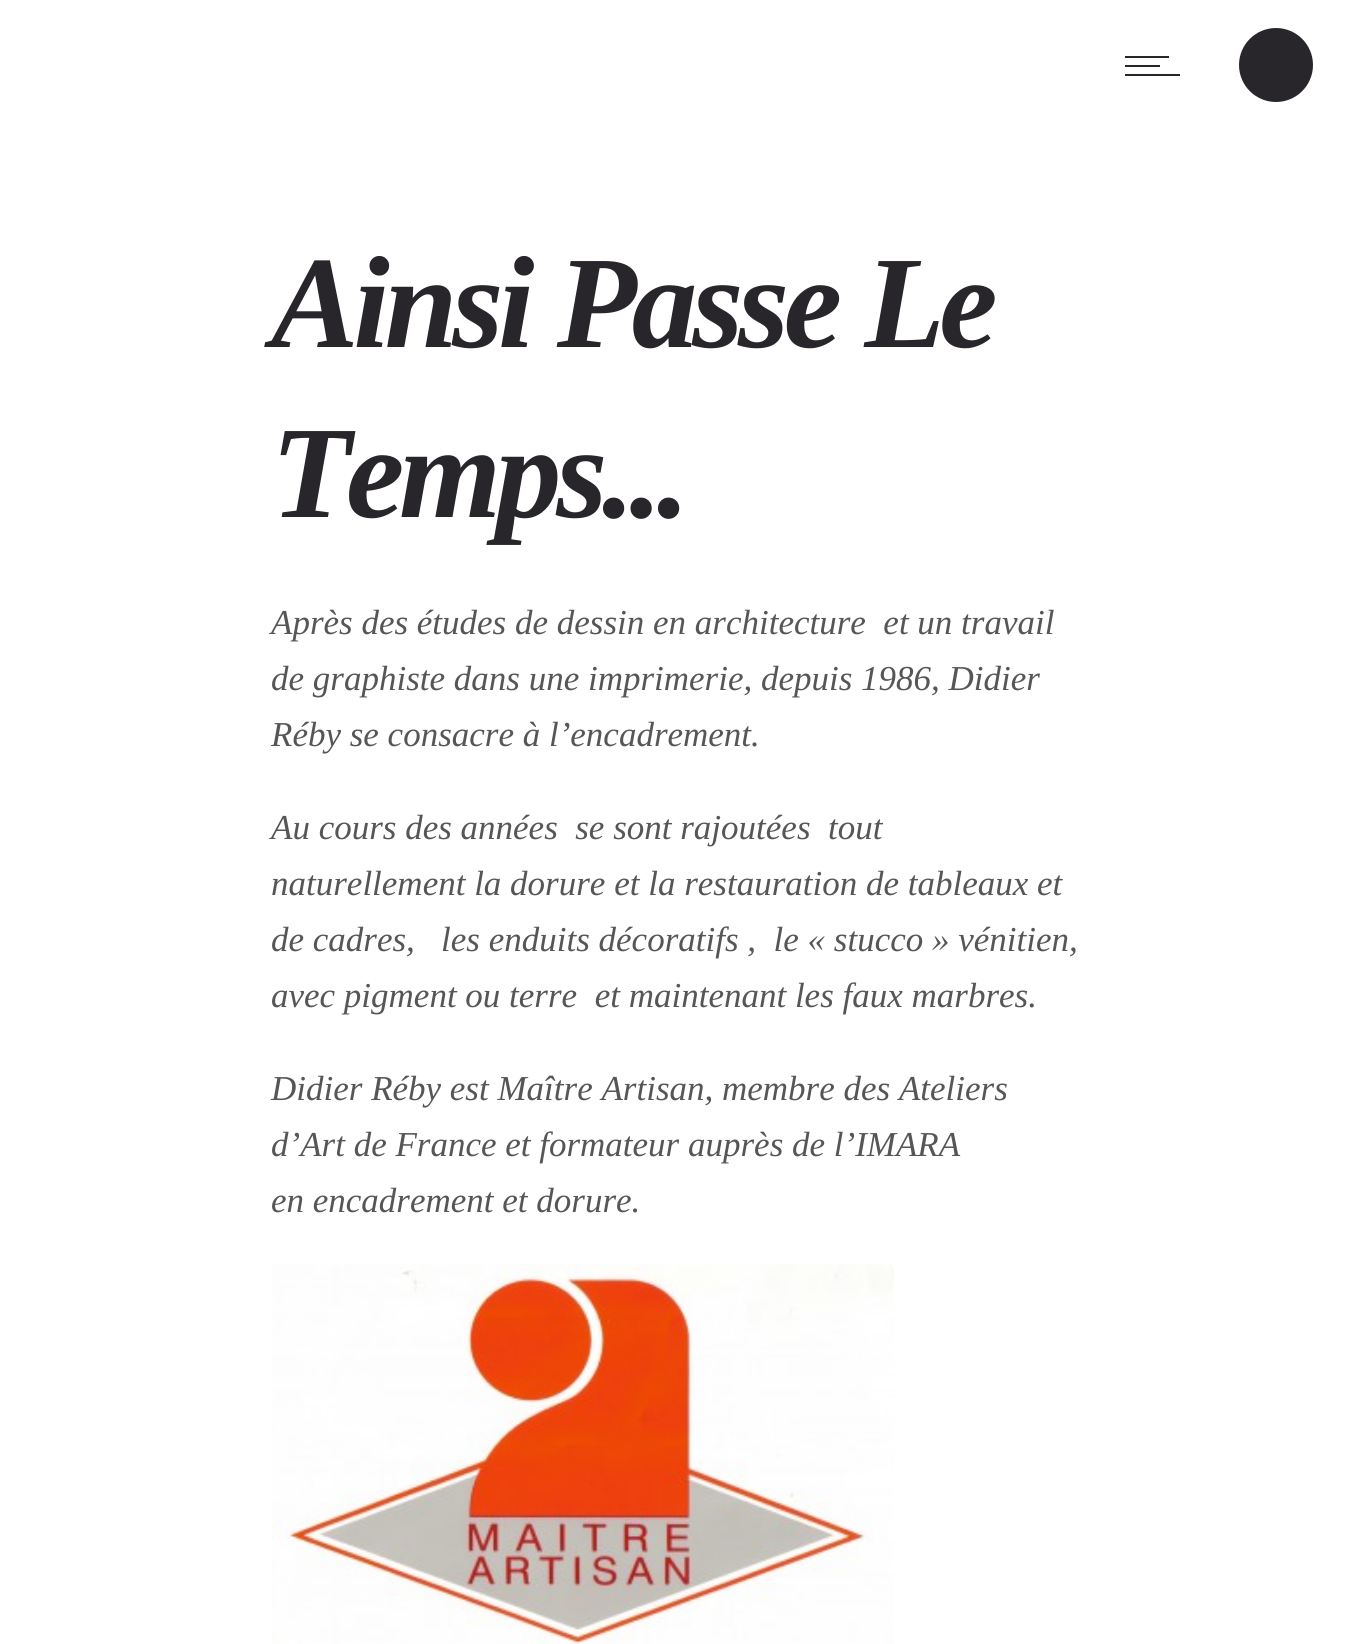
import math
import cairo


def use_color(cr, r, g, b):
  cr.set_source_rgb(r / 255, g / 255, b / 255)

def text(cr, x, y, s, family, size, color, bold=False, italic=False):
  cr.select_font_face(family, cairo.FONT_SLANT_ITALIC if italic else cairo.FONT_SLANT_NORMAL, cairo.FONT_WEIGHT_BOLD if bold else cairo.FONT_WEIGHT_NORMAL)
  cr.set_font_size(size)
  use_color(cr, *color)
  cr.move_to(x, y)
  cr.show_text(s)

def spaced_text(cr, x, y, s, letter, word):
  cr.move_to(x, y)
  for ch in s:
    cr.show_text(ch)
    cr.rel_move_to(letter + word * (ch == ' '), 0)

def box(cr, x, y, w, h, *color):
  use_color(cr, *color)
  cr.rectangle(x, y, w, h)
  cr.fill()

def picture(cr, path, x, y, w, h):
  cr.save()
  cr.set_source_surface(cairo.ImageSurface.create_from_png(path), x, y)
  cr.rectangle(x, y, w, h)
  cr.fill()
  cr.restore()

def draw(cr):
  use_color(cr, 255, 255, 255)
  cr.paint()
  box(cr, 1125, 56, 44, 2, 40, 38, 43)
  box(cr, 1125, 65, 35, 2, 40, 38, 43)
  box(cr, 1125, 74, 55, 2, 40, 38, 43)
  cr.arc(1276, 65, 37, 0, 2 * math.pi)
  cr.fill()
  picture(cr, "img_01.png", 271, 1264, 623, 380)
  cr.select_font_face("Liberation Serif", cairo.FONT_SLANT_ITALIC, cairo.FONT_WEIGHT_BOLD)
  cr.set_font_size(131.25)
  spaced_text(cr, 271, 347, "Ainsi Passe Le", -5.25, 0)
  spaced_text(cr, 271, 517, "Temps...", -5.25, 0)
  text(cr, 271, 634, "Après des études de dessin en architecture  et un travail", "Liberation Serif", 35, (86, 86, 86), italic=True)
  text(cr, 271, 690, "de graphiste dans une imprimerie, depuis 1986, Didier", "Liberation Serif", 35, (86, 86, 86), italic=True)
  text(cr, 271, 746, "Réby se consacre à l’encadrement.", "Liberation Serif", 35, (86, 86, 86), italic=True)
  text(cr, 271, 839, "Au cours des années  se sont rajoutées  tout", "Liberation Serif", 35, (86, 86, 86), italic=True)
  text(cr, 271, 895, "naturellement la dorure et la restauration de tableaux et", "Liberation Serif", 35, (86, 86, 86), italic=True)
  text(cr, 271, 951, "de cadres,   les enduits décoratifs ,  le « stucco » vénitien,", "Liberation Serif", 35, (86, 86, 86), italic=True)
  text(cr, 271, 1007, "avec pigment ou terre  et maintenant les faux marbres.", "Liberation Serif", 35, (86, 86, 86), italic=True)
  text(cr, 271, 1100, "Didier Réby est Maître Artisan, membre des Ateliers", "Liberation Serif", 35, (86, 86, 86), italic=True)
  text(cr, 271, 1156, "d’Art de France et formateur auprès de l’IMARA", "Liberation Serif", 35, (86, 86, 86), italic=True)
  text(cr, 271, 1212, "en encadrement et dorure.", "Liberation Serif", 35, (86, 86, 86), italic=True)


surface = cairo.ImageSurface(cairo.FORMAT_RGB24, 1354, 1644)
cr = cairo.Context(surface)
options = cairo.FontOptions()
options.set_hint_metrics(cairo.HINT_METRICS_OFF)
options.set_hint_style(cairo.HINT_STYLE_NONE)
cr.set_font_options(options)
cr.set_miter_limit(4)
draw(cr)
surface.write_to_png("out.png")
